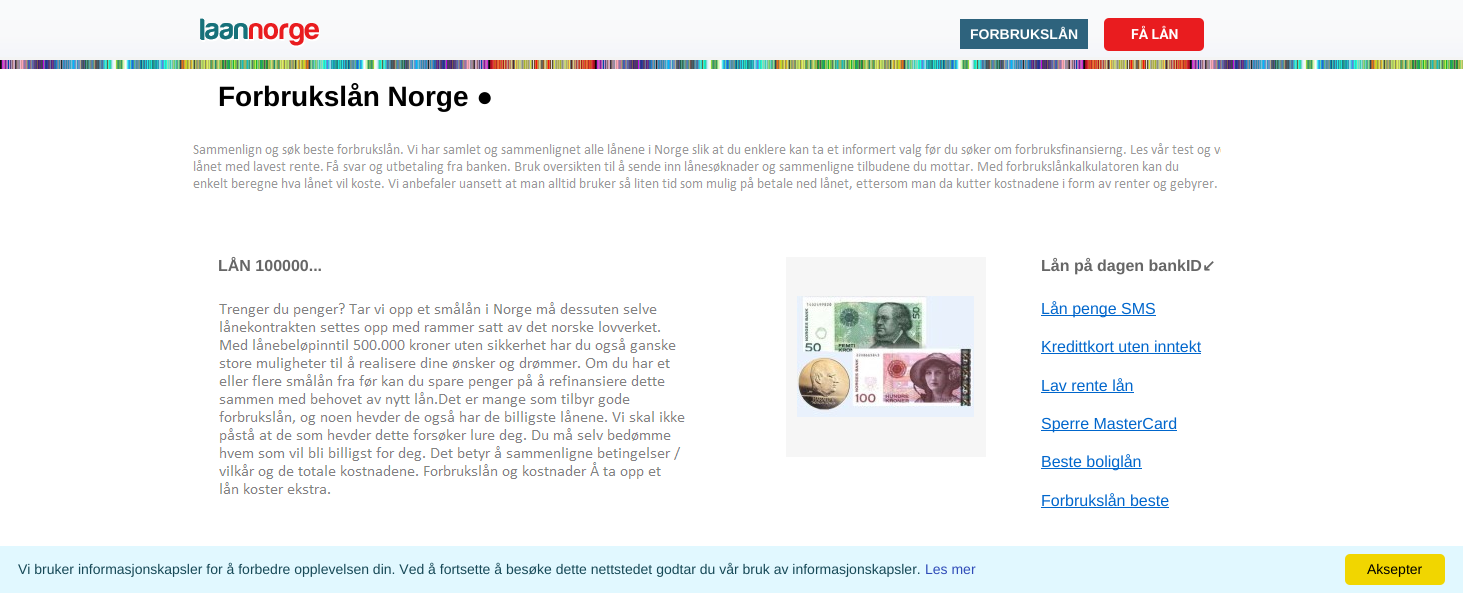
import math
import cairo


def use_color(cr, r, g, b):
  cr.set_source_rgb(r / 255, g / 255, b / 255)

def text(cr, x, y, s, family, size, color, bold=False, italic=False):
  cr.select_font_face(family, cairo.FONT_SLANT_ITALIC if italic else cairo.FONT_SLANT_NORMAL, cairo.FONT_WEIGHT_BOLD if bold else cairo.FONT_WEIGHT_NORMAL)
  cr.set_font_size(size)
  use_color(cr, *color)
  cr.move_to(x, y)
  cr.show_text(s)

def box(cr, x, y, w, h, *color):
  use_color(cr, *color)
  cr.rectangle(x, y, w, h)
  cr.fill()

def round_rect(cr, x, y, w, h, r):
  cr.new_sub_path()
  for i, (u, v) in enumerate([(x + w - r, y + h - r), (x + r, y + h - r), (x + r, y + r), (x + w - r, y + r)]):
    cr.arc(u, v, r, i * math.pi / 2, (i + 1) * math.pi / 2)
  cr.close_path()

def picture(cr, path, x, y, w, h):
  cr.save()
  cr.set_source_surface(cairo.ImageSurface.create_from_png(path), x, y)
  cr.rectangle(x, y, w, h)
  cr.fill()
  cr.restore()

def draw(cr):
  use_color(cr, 255, 255, 255)
  cr.paint()
  picture(cr, "img_01.png", 0, 0, 1463, 60)
  picture(cr, "img_02.png", 200, 18, 120, 30)
  box(cr, 960, 19, 128, 30, 46, 99, 125)
  use_color(cr, 233, 28, 31)
  round_rect(cr, 1104, 18, 100, 33, 5)
  cr.fill()
  picture(cr, "img_03.png", 0, 60, 1463, 9)
  picture(cr, "img_04.png", 193, 143, 1028, 48)
  picture(cr, "img_05.png", 218, 302, 467, 192)
  box(cr, 786, 257, 200, 200, 246, 246, 246)
  picture(cr, "img_06.png", 797, 296, 177, 121)
  box(cr, 1041, 315, 115, 1, 0, 102, 204)
  box(cr, 1041, 353, 160, 1, 0, 102, 204)
  box(cr, 1041, 392, 93, 1, 0, 102, 204)
  box(cr, 1041, 430, 136, 1, 0, 102, 204)
  box(cr, 1041, 468, 101, 1, 0, 102, 204)
  box(cr, 1041, 507, 128, 1, 0, 102, 204)
  box(cr, 0, 546, 1463, 47, 225, 248, 255)
  use_color(cr, 241, 214, 0)
  round_rect(cr, 1345, 554, 100, 31, 5)
  cr.fill()
  text(cr, 970, 39, "FORBRUKSLÅN", "Liberation Sans", 14, (255, 255, 255), bold=True)
  text(cr, 1131, 39, "FÅ LÅN", "Roboto", 14, (255, 255, 255), bold=True)
  text(cr, 218, 106, "Forbrukslån Norge ●", "Liberation Sans", 28, (0, 0, 0), bold=True)
  text(cr, 218, 271, "LÅN 100000...", "Liberation Sans", 16, (102, 102, 102), bold=True)
  text(cr, 1041, 271, "Lån på dagen bankID", "Liberation Sans", 16, (102, 102, 102), bold=True)
  text(cr, 1202, 271, "↙", "DejaVu Sans", 16, (102, 102, 102), bold=True)
  text(cr, 1041, 314, "Lån penge SMS", "Liberation Sans", 16, (0, 102, 204))
  text(cr, 1041, 352, "Kredittkort uten inntekt", "Liberation Sans", 16, (0, 102, 204))
  text(cr, 1041, 391, "Lav rente lån", "Liberation Sans", 16, (0, 102, 204))
  text(cr, 1041, 429, "Sperre MasterCard", "Liberation Sans", 16, (0, 102, 204))
  text(cr, 1041, 467, "Beste boliglån", "Liberation Sans", 16, (0, 102, 204))
  text(cr, 1041, 506, "Forbrukslån beste", "Liberation Sans", 16, (0, 102, 204))
  text(cr, 18, 574, "Vi bruker informasjonskapsler for å forbedre opplevelsen din. Ved å fortsette å besøke dette nettstedet godtar du vår bruk av informasjonskapsler.", "Liberation Sans", 14, (23, 73, 87))
  text(cr, 925, 574, "Les mer", "Liberation Sans", 14, (47, 76, 184))
  text(cr, 1367, 574, "Aksepter", "Liberation Sans", 14, (0, 0, 0))


surface = cairo.ImageSurface(cairo.FORMAT_RGB24, 1463, 593)
cr = cairo.Context(surface)
options = cairo.FontOptions()
options.set_hint_metrics(cairo.HINT_METRICS_OFF)
options.set_hint_style(cairo.HINT_STYLE_NONE)
cr.set_font_options(options)
cr.set_miter_limit(4)
draw(cr)
surface.write_to_png("out.png")
